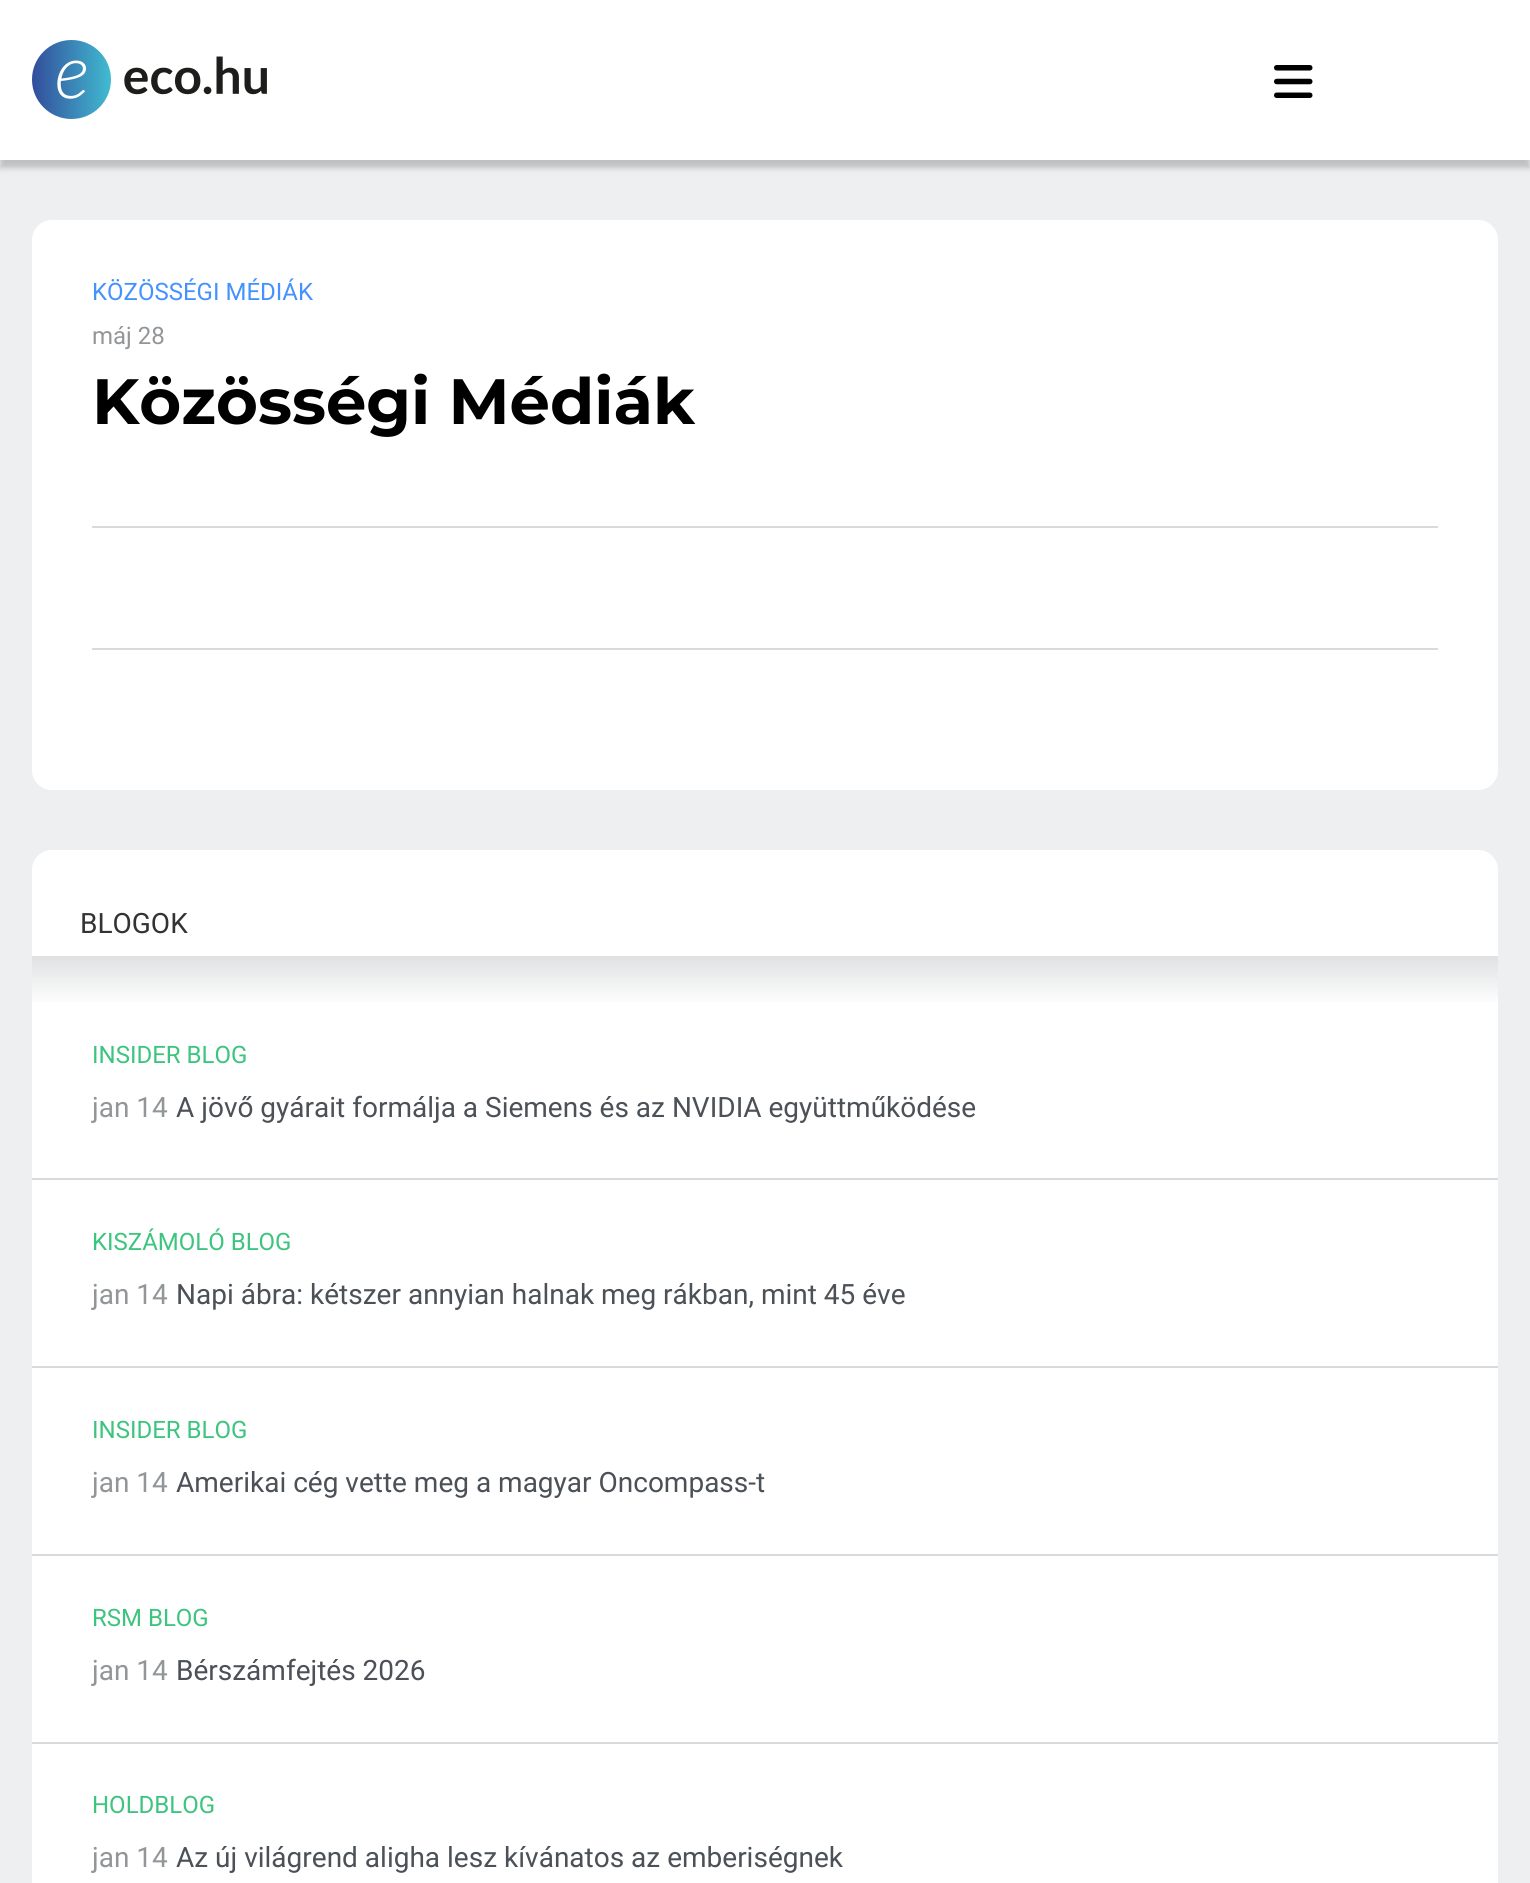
import math
import cairo


def use_color(cr, r, g, b):
  cr.set_source_rgb(r / 255, g / 255, b / 255)

def text(cr, x, y, s, family, size, color, bold=False, italic=False):
  cr.select_font_face(family, cairo.FONT_SLANT_ITALIC if italic else cairo.FONT_SLANT_NORMAL, cairo.FONT_WEIGHT_BOLD if bold else cairo.FONT_WEIGHT_NORMAL)
  cr.set_font_size(size)
  use_color(cr, *color)
  cr.move_to(x, y)
  cr.show_text(s)

def box(cr, x, y, w, h, *color):
  use_color(cr, *color)
  cr.rectangle(x, y, w, h)
  cr.fill()

def round_rect(cr, x, y, w, h, r):
  cr.new_sub_path()
  for i, (u, v) in enumerate([(x + w - r, y + h - r), (x + r, y + h - r), (x + r, y + r), (x + w - r, y + r)]):
    cr.arc(u, v, r, i * math.pi / 2, (i + 1) * math.pi / 2)
  cr.close_path()

def shadow(cr, x, y, w, h, r, blur, alpha):
  cr.push_group_with_content(cairo.CONTENT_ALPHA)
  cr.set_operator(cairo.OPERATOR_SOURCE)
  for i in range(15, -16, -2):
    e = blur * i / 6
    if min(w, h) + 2 * e > 0:
      cr.set_source_rgba(0, 0, 0, alpha * math.erfc((i - 1) / 8.5) / 2)
      round_rect(cr, x - e, y - e, w + 2 * e, h + 2 * e, max(0, min(r + e + blur * .6, min(w, h) / 2 + e)))
      cr.fill()
  cr.mask(cr.pop_group())

def picture(cr, path, x, y, w, h):
  cr.save()
  cr.set_source_surface(cairo.ImageSurface.create_from_png(path), x, y)
  cr.rectangle(x, y, w, h)
  cr.fill()
  cr.restore()

def draw(cr):
  use_color(cr, 237, 239, 240)
  cr.paint()
  use_color(cr, 0, 0, 0)
  shadow(cr, 0, 8, 1530, 160, 0, 3, 0.2)
  box(cr, 0, 0, 1530, 160, 255, 255, 255)
  picture(cr, "img_01.png", 32, 40, 235, 79)
  picture(cr, "img_02.png", 1274, 65, 39, 33)
  round_rect(cr, 32, 220, 1466, 570, 20)
  cr.fill()
  box(cr, 92, 526, 1346, 2, 217, 218, 219)
  box(cr, 92, 648, 1346, 2, 217, 218, 219)
  use_color(cr, 255, 255, 255)
  round_rect(cr, 32, 850, 1466, 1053, 20)
  cr.fill()
  gradient = cairo.LinearGradient(765, 900, 765, 1006)
  gradient.add_color_stop_rgba(0, 0.745, 0.753, 0.761, 1)
  gradient.add_color_stop_rgba(1, 1, 1, 1, 1)
  cr.set_source(gradient)
  cr.rectangle(32, 956, 1466, 46)
  cr.fill()
  box(cr, 32, 1178, 1466, 2, 217, 218, 219)
  box(cr, 32, 1366, 1466, 2, 217, 218, 219)
  box(cr, 32, 1554, 1466, 2, 217, 218, 219)
  box(cr, 32, 1742, 1466, 2, 217, 218, 219)
  text(cr, 92, 300, "KÖZÖSSÉGI MÉDIÁK", "Roboto", 24, (69, 146, 255))
  text(cr, 92, 344, "máj 28", "Roboto", 24, (147, 150, 153))
  text(cr, 92, 424, "Közösségi Médiák", "Montserrat", 64, (0, 0, 0), bold=True)
  text(cr, 80, 933, "BLOGOK", "Roboto", 28, (51, 51, 51))
  text(cr, 92, 1063, "INSIDER BLOG", "Roboto", 24, (61, 196, 126))
  text(cr, 92, 1117, "jan 14", "Roboto", 28, (147, 150, 153))
  text(cr, 176, 1117, "A jövő gyárait formálja a Siemens és az NVIDIA együttműködése", "Roboto", 28, (75, 81, 87))
  text(cr, 92, 1250, "KISZÁMOLÓ BLOG", "Roboto", 24, (61, 196, 126))
  text(cr, 92, 1304, "jan 14", "Roboto", 28, (147, 150, 153))
  text(cr, 176, 1304, "Napi ábra: kétszer annyian halnak meg rákban, mint 45 éve", "Roboto", 28, (75, 81, 87))
  text(cr, 92, 1438, "INSIDER BLOG", "Roboto", 24, (61, 196, 126))
  text(cr, 92, 1492, "jan 14", "Roboto", 28, (147, 150, 153))
  text(cr, 176, 1492, "Amerikai cég vette meg a magyar Oncompass-t", "Roboto", 28, (75, 81, 87))
  text(cr, 92, 1626, "RSM BLOG", "Roboto", 24, (61, 196, 126))
  text(cr, 92, 1680, "jan 14", "Roboto", 28, (147, 150, 153))
  text(cr, 176, 1680, "Bérszámfejtés 2026", "Roboto", 28, (75, 81, 87))
  text(cr, 92, 1813, "HOLDBLOG", "Roboto", 24, (61, 196, 126))
  text(cr, 92, 1867, "jan 14", "Roboto", 28, (147, 150, 153))
  text(cr, 176, 1867, "Az új világrend aligha lesz kívánatos az emberiségnek", "Roboto", 28, (75, 81, 87))


surface = cairo.ImageSurface(cairo.FORMAT_RGB24, 1530, 1883)
cr = cairo.Context(surface)
options = cairo.FontOptions()
options.set_hint_metrics(cairo.HINT_METRICS_OFF)
options.set_hint_style(cairo.HINT_STYLE_NONE)
cr.set_font_options(options)
cr.set_miter_limit(4)
draw(cr)
surface.write_to_png("out.png")
